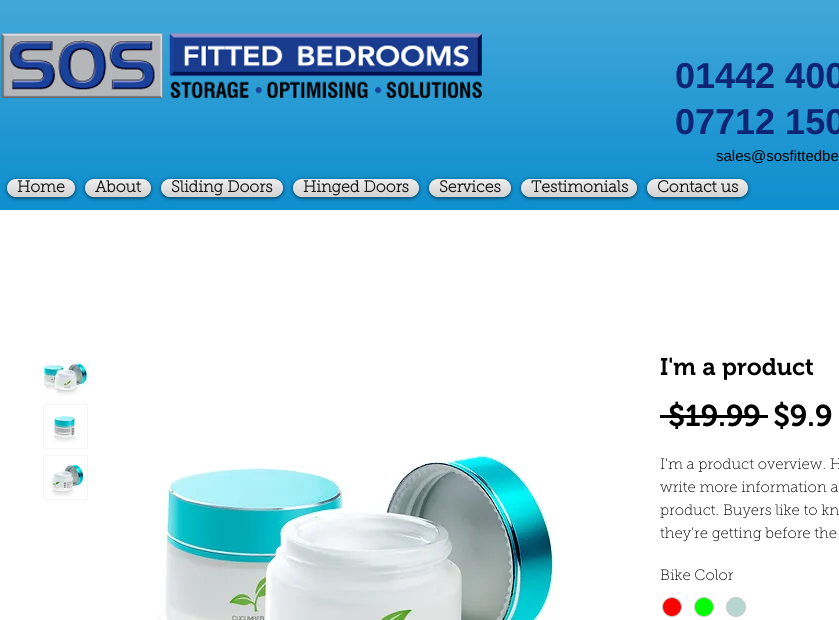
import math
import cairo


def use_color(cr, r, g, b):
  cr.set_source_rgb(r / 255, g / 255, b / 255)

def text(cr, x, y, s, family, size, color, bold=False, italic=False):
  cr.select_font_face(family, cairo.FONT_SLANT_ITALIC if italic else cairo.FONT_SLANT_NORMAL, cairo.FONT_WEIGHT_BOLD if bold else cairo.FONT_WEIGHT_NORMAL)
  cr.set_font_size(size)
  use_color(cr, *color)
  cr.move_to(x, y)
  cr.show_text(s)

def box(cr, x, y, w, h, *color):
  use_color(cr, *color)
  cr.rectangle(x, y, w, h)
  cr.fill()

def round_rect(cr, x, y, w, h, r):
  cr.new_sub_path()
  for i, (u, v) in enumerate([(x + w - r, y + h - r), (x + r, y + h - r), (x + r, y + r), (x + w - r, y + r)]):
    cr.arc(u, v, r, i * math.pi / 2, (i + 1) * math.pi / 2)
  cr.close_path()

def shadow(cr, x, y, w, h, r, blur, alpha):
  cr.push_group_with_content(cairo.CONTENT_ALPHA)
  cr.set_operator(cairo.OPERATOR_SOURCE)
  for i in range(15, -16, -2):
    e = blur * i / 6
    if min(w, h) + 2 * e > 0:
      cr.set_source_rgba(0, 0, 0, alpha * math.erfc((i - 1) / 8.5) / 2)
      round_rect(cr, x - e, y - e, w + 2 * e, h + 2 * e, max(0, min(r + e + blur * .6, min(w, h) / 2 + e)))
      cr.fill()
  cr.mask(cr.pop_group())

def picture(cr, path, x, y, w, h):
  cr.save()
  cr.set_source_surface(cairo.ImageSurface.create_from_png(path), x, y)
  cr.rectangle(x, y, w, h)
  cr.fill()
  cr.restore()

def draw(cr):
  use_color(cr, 255, 255, 255)
  cr.paint()
  box(cr, 0, 0, 839, 210, 0, 136, 203)
  picture(cr, "img_01.png", 0, 0, 839, 210)
  picture(cr, "img_02.png", 1, 32, 481, 67)
  use_color(cr, 0, 0, 0)
  shadow(cr, 7, 180, 68, 18, 9, 2, 0.6)
  use_color(cr, 255, 255, 255)
  round_rect(cr, 7, 179, 68, 18, 9)
  cr.fill()
  picture(cr, "img_03.png", 7, 185, 68, 1)
  picture(cr, "img_04.png", 7, 179, 68, 18)
  use_color(cr, 0, 0, 0)
  shadow(cr, 85, 180, 66, 18, 9, 2, 0.6)
  use_color(cr, 255, 255, 255)
  round_rect(cr, 85, 179, 66, 18, 9)
  cr.fill()
  picture(cr, "img_05.png", 85, 185, 66, 1)
  picture(cr, "img_06.png", 85, 179, 66, 18)
  use_color(cr, 0, 0, 0)
  shadow(cr, 161, 180, 122, 18, 9, 2, 0.6)
  use_color(cr, 255, 255, 255)
  round_rect(cr, 161, 179, 122, 18, 9)
  cr.fill()
  picture(cr, "img_07.png", 161, 185, 122, 1)
  picture(cr, "img_08.png", 161, 179, 122, 18)
  use_color(cr, 0, 0, 0)
  shadow(cr, 293, 180, 126, 18, 9, 2, 0.6)
  use_color(cr, 255, 255, 255)
  round_rect(cr, 293, 179, 126, 18, 9)
  cr.fill()
  picture(cr, "img_09.png", 293, 185, 126, 1)
  picture(cr, "img_10.png", 293, 179, 126, 18)
  use_color(cr, 0, 0, 0)
  shadow(cr, 429, 180, 82, 18, 9, 2, 0.6)
  use_color(cr, 255, 255, 255)
  round_rect(cr, 429, 179, 82, 18, 9)
  cr.fill()
  picture(cr, "img_11.png", 429, 185, 82, 1)
  picture(cr, "img_12.png", 429, 179, 82, 18)
  use_color(cr, 0, 0, 0)
  shadow(cr, 521, 180, 116, 18, 9, 2, 0.6)
  use_color(cr, 255, 255, 255)
  round_rect(cr, 521, 179, 116, 18, 9)
  cr.fill()
  picture(cr, "img_13.png", 521, 185, 116, 1)
  picture(cr, "img_14.png", 521, 179, 116, 18)
  use_color(cr, 0, 0, 0)
  shadow(cr, 647, 180, 101, 18, 9, 2, 0.6)
  use_color(cr, 255, 255, 255)
  round_rect(cr, 647, 179, 101, 18, 9)
  cr.fill()
  picture(cr, "img_15.png", 647, 185, 101, 1)
  picture(cr, "img_16.png", 647, 179, 101, 18)
  picture(cr, "img_17.png", 44, 361, 43, 35)
  cr.rectangle(43.5, 404.5, 44, 44)
  use_color(cr, 245, 245, 245)
  cr.set_line_width(1)
  cr.stroke()
  picture(cr, "img_18.png", 53, 416, 23, 26)
  cr.rectangle(43.5, 455.5, 44, 44)
  cr.stroke()
  picture(cr, "img_19.png", 51, 464, 33, 32)
  picture(cr, "img_20.png", 157, 455, 399, 165)
  box(cr, 660, 415, 108, 3, 0, 0, 0)
  use_color(cr, 255, 0, 0)
  cr.arc(672, 607, 9.5, 0, 2 * math.pi)
  cr.fill_preserve()
  use_color(cr, 201, 201, 201)
  cr.stroke()
  use_color(cr, 0, 255, 0)
  cr.arc(704, 607, 9.5, 0, 2 * math.pi)
  cr.fill_preserve()
  use_color(cr, 201, 201, 201)
  cr.stroke()
  use_color(cr, 186, 214, 210)
  cr.arc(736, 607, 9.5, 0, 2 * math.pi)
  cr.fill_preserve()
  use_color(cr, 201, 201, 201)
  cr.stroke()
  text(cr, 675, 88, "01442 400", "Liberation Sans", 36, (14, 36, 117), bold=True)
  text(cr, 675, 134, "07712 150", "Liberation Sans", 36, (14, 36, 117), bold=True)
  text(cr, 716, 161, "sales@sosfittedbe", "Liberation Sans", 15, (0, 0, 0))
  text(cr, 17, 192, "Home", "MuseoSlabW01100", 16, (19, 19, 19), bold=True)
  text(cr, 95, 192, "About", "MuseoSlabW01100", 16, (19, 19, 19), bold=True)
  text(cr, 171, 192, "Sliding Doors", "MuseoSlabW01100", 16, (19, 19, 19), bold=True)
  text(cr, 303, 192, "Hinged Doors", "MuseoSlabW01100", 16, (19, 19, 19), bold=True)
  text(cr, 439, 192, "Services", "MuseoSlabW01100", 16, (19, 19, 19), bold=True)
  text(cr, 531, 192, "Testimonials", "MuseoSlabW01100", 16, (19, 19, 19), bold=True)
  text(cr, 657, 192, "Contact us", "MuseoSlabW01100", 16, (19, 19, 19), bold=True)
  text(cr, 660, 375, "I'm a product", "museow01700 SemiBold", 24, (0, 0, 0))
  text(cr, 668, 426, "$19.99", "museow01700 SemiBold", 30, (0, 0, 0))
  text(cr, 773, 426, "$9.9", "museow01700 SemiBold", 30, (0, 0, 0))
  text(cr, 660, 469, "I'm a product overview. H", "MuseoSlabW01100 Thin", 15, (0, 0, 0))
  text(cr, 660, 492, "write more information a", "MuseoSlabW01100 Thin", 15, (0, 0, 0))
  text(cr, 660, 515, "product. Buyers like to kn", "MuseoSlabW01100 Thin", 15, (0, 0, 0))
  text(cr, 660, 538, "they’re getting before the", "MuseoSlabW01100 Thin", 15, (0, 0, 0))
  text(cr, 660, 580, "Bike Color", "MuseoSlabW01100 Thin", 15, (0, 0, 0))


surface = cairo.ImageSurface(cairo.FORMAT_RGB24, 839, 620)
cr = cairo.Context(surface)
options = cairo.FontOptions()
options.set_hint_metrics(cairo.HINT_METRICS_OFF)
options.set_hint_style(cairo.HINT_STYLE_NONE)
cr.set_font_options(options)
cr.set_miter_limit(4)
draw(cr)
surface.write_to_png("out.png")
